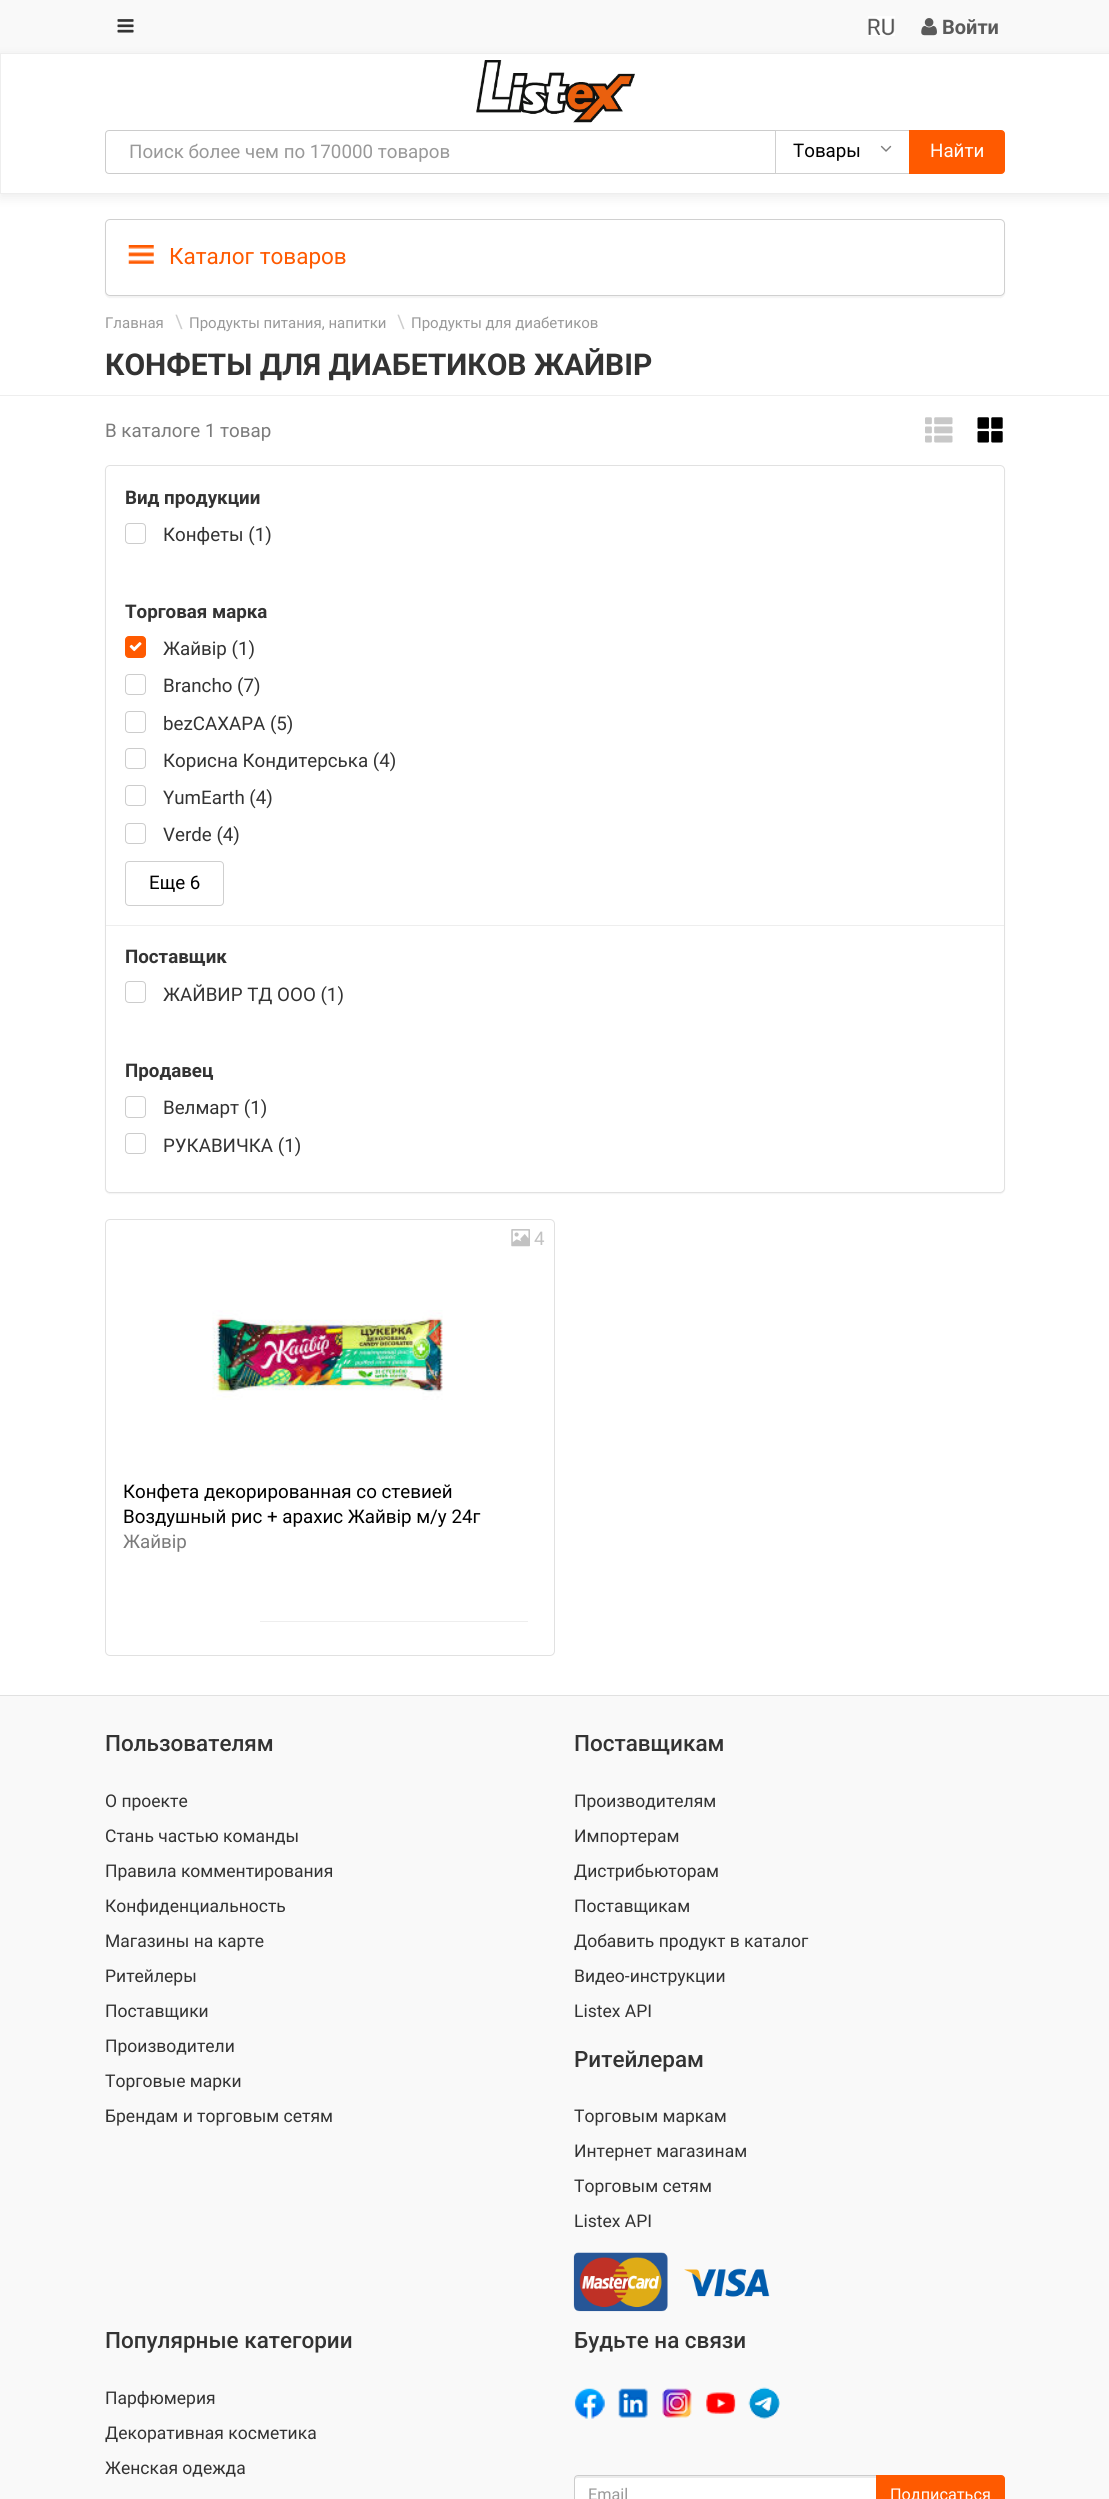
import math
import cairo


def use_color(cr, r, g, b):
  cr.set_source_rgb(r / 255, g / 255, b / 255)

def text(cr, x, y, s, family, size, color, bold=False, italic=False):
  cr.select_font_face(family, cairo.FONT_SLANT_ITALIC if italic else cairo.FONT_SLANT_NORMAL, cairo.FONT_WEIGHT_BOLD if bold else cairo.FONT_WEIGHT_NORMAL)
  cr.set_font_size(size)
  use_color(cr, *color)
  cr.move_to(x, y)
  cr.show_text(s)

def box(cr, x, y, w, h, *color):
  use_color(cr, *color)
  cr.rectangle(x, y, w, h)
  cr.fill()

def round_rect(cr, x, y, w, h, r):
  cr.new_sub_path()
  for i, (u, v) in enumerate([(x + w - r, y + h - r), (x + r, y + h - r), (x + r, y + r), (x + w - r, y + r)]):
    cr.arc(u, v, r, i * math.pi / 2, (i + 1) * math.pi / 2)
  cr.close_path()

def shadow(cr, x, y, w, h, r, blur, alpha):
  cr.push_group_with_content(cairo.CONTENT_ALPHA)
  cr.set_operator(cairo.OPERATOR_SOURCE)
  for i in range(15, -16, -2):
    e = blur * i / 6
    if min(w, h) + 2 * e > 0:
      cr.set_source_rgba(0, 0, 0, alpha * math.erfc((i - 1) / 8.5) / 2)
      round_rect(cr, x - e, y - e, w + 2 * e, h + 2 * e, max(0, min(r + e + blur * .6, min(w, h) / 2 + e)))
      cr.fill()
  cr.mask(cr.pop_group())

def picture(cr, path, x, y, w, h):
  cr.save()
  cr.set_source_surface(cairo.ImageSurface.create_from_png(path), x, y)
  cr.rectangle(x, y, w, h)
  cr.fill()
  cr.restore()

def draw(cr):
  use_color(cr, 255, 255, 255)
  cr.paint()
  box(cr, 0, 0, 1109, 53, 249, 249, 249)
  picture(cr, "img_01.png", 117, 19, 17, 14)
  picture(cr, "img_02.png", 868, 16, 27, 20)
  picture(cr, "img_03.png", 921, 18, 16, 18)
  use_color(cr, 0, 0, 0)
  shadow(cr, 0, 56, 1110, 142, 0, 6, 0.07)
  use_color(cr, 255, 255, 255)
  cr.rectangle(0.5, 53.5, 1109, 140)
  cr.fill_preserve()
  use_color(cr, 238, 238, 238)
  cr.set_line_width(1)
  cr.stroke()
  picture(cr, "img_04.png", 476, 60, 159, 63)
  cr.new_path()
  cr.move_to(109, 130.5)
  cr.line_to(784.5, 130.5)
  cr.line_to(784.5, 173.5)
  cr.line_to(109, 173.5)
  cr.curve_to(107, 173.5, 105.5, 172, 105.5, 170)
  cr.line_to(105.5, 134)
  cr.curve_to(105.5, 132, 107, 130.5, 109, 130.5)
  cr.close_path()
  use_color(cr, 204, 204, 204)
  cr.stroke()
  box(cr, 784, 131, 1, 42, 255, 255, 255)
  cr.rectangle(775.5, 130.5, 138, 43)
  use_color(cr, 207, 207, 207)
  cr.stroke()
  picture(cr, "img_05.png", 880, 145, 12, 7)
  use_color(cr, 255, 90, 0)
  cr.new_path()
  cr.move_to(909.5, 130.5)
  cr.line_to(1001, 130.5)
  cr.curve_to(1003, 130.5, 1004.5, 132, 1004.5, 134)
  cr.line_to(1004.5, 170)
  cr.curve_to(1004.5, 172, 1003, 173.5, 1001, 173.5)
  cr.line_to(909.5, 173.5)
  cr.close_path()
  cr.fill_preserve()
  cr.stroke()
  use_color(cr, 0, 0, 0)
  shadow(cr, 105, 220, 900, 78, 5, 0.5, 0.05)
  use_color(cr, 255, 255, 255)
  round_rect(cr, 105.5, 219.5, 899, 76, 4.5)
  cr.fill_preserve()
  use_color(cr, 208, 208, 208)
  cr.stroke()
  picture(cr, "img_06.png", 128, 245, 26, 19)
  box(cr, 0, 395, 1109, 1, 238, 238, 238)
  picture(cr, "img_07.png", 925, 417, 28, 26)
  picture(cr, "img_08.png", 977, 417, 26, 26)
  use_color(cr, 0, 0, 0)
  shadow(cr, 105, 466, 900, 728, 5, 0.5, 0.05)
  use_color(cr, 255, 255, 255)
  round_rect(cr, 105.5, 465.5, 899, 727, 4.5)
  cr.fill_preserve()
  use_color(cr, 225, 225, 225)
  cr.stroke()
  round_rect(cr, 125.5, 523.5, 20, 20, 3.5)
  use_color(cr, 204, 204, 204)
  cr.stroke()
  use_color(cr, 255, 90, 0)
  round_rect(cr, 125.5, 636.5, 20, 21, 3.5)
  cr.fill_preserve()
  cr.stroke()
  picture(cr, "img_09.png", 129, 642, 13, 10)
  round_rect(cr, 125.5, 674.5, 20, 20, 3.5)
  use_color(cr, 204, 204, 204)
  cr.stroke()
  round_rect(cr, 125.5, 711.5, 20, 21, 3.5)
  cr.stroke()
  round_rect(cr, 125.5, 748.5, 20, 20, 3.5)
  cr.stroke()
  round_rect(cr, 125.5, 785.5, 20, 20, 3.5)
  cr.stroke()
  round_rect(cr, 125.5, 823.5, 20, 20, 3.5)
  cr.stroke()
  round_rect(cr, 125.5, 861.5, 98, 44, 3.5)
  use_color(cr, 207, 207, 207)
  cr.stroke()
  box(cr, 106, 925, 898, 1, 238, 238, 238)
  round_rect(cr, 125.5, 981.5, 20, 21, 3.5)
  use_color(cr, 204, 204, 204)
  cr.stroke()
  round_rect(cr, 125.5, 1096.5, 20, 21, 3.5)
  cr.stroke()
  round_rect(cr, 125.5, 1133.5, 20, 20, 3.5)
  cr.stroke()
  round_rect(cr, 105.5, 1219.5, 449, 436, 4.5)
  use_color(cr, 225, 225, 225)
  cr.stroke()
  picture(cr, "img_10.png", 511, 1229, 19, 18)
  picture(cr, "img_11.png", 212, 1310, 231, 90)
  box(cr, 260, 1621, 268, 1, 238, 238, 238)
  box(cr, 0, 1696, 1109, 803, 249, 249, 249)
  box(cr, 0, 1695, 1109, 1, 225, 225, 225)
  picture(cr, "img_12.png", 573, 2252, 95, 60)
  picture(cr, "img_13.png", 684, 2268, 86, 29)
  picture(cr, "img_14.png", 574, 2388, 31, 31)
  picture(cr, "img_15.png", 618, 2388, 30, 30)
  picture(cr, "img_16.png", 662, 2388, 30, 30)
  picture(cr, "img_17.png", 706, 2392, 30, 22)
  picture(cr, "img_18.png", 748, 2387, 32, 32)
  use_color(cr, 255, 255, 255)
  cr.new_path()
  cr.move_to(578, 2475)
  cr.line_to(878, 2475)
  cr.line_to(878, 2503)
  cr.line_to(578, 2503)
  cr.curve_to(576, 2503, 574, 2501, 574, 2499)
  cr.line_to(574, 2479)
  cr.curve_to(574, 2477, 576, 2475, 578, 2475)
  cr.close_path()
  cr.fill()
  use_color(cr, 236, 236, 236)
  cr.new_path()
  cr.move_to(578, 2478)
  cr.line_to(876, 2478)
  cr.line_to(876, 2476)
  cr.line_to(578, 2476)
  cr.curve_to(576, 2476, 575, 2477, 575, 2478)
  cr.line_to(575, 2480)
  cr.curve_to(575, 2479, 576, 2478, 578, 2478)
  cr.close_path()
  cr.fill()
  cr.new_path()
  cr.move_to(578, 2475.5)
  cr.line_to(877.5, 2475.5)
  cr.line_to(877.5, 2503.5)
  cr.line_to(578, 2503.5)
  cr.curve_to(576, 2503.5, 574.5, 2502, 574.5, 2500)
  cr.line_to(574.5, 2479)
  cr.curve_to(574.5, 2477, 576, 2475.5, 578, 2475.5)
  cr.close_path()
  use_color(cr, 204, 204, 204)
  cr.stroke()
  use_color(cr, 255, 90, 0)
  cr.new_path()
  cr.move_to(876.5, 2475.5)
  cr.line_to(1001, 2475.5)
  cr.curve_to(1003, 2475.5, 1004.5, 2477, 1004.5, 2479)
  cr.line_to(1004.5, 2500)
  cr.curve_to(1004.5, 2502, 1003, 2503.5, 1001, 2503.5)
  cr.line_to(876.5, 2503.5)
  cr.close_path()
  cr.fill_preserve()
  cr.stroke()
  text(cr, 942, 34, "Войти", "Roboto", 20, (90, 90, 90), bold=True)
  text(cr, 129, 158, "Поиск более чем по 170000 товаров", "Roboto", 18.75, (153, 153, 153))
  text(cr, 793, 157, "Товары", "Roboto", 18.75, (0, 0, 0))
  text(cr, 930, 157, "Найти", "Roboto", 18.75, (255, 255, 255))
  text(cr, 169, 264, "Каталог товаров", "Roboto", 22.5, (255, 90, 0))
  text(cr, 105, 328, "Главная", "Roboto", 15, (153, 153, 153))
  text(cr, 175, 328, "\\", "Roboto", 18.75, (204, 204, 204))
  text(cr, 189, 328, "Продукты питания, напитки", "Roboto", 15, (153, 153, 153))
  text(cr, 397, 328, "\\", "Roboto", 18.75, (204, 204, 204))
  text(cr, 411, 328, "Продукты для диабетиков", "Roboto", 15, (153, 153, 153))
  text(cr, 105, 375, "КОНФЕТЫ ДЛЯ ДИАБЕТИКОВ ЖАЙВІР", "Roboto", 30, (51, 51, 51), bold=True)
  text(cr, 105, 437, "В каталоге 1 товар", "Roboto", 18.75, (123, 123, 123))
  text(cr, 125, 504, "Вид продукции", "Roboto", 18.75, (51, 51, 51), bold=True)
  text(cr, 163, 541, "Конфеты (1)", "Roboto", 18.75, (51, 51, 51))
  text(cr, 125, 618, "Торговая марка", "Roboto", 18.75, (51, 51, 51), bold=True)
  text(cr, 163, 655, "Жайвір (1)", "Roboto", 18.75, (51, 51, 51))
  text(cr, 163, 692, "Brancho (7)", "Roboto", 18.75, (51, 51, 51))
  text(cr, 163, 730, "bezСАХАРА (5)", "Roboto", 18.75, (51, 51, 51))
  text(cr, 163, 767, "Корисна Кондитерська (4)", "Roboto", 18.75, (51, 51, 51))
  text(cr, 163, 804, "YumEarth (4)", "Roboto", 18.75, (51, 51, 51))
  text(cr, 163, 841, "Verde (4)", "Roboto", 18.75, (51, 51, 51))
  text(cr, 149, 889, "Еще 6", "Roboto", 18.75, (0, 0, 0))
  text(cr, 125, 963, "Поставщик", "Roboto", 18.75, (51, 51, 51), bold=True)
  text(cr, 163, 1001, "ЖАЙВИР ТД ООО (1)", "Roboto", 18.75, (51, 51, 51))
  text(cr, 125, 1077, "Продавец", "Roboto", 18.75, (51, 51, 51), bold=True)
  text(cr, 163, 1114, "Велмарт (1)", "Roboto", 18.75, (51, 51, 51))
  text(cr, 163, 1152, "РУКАВИЧКА (1)", "Roboto", 18.75, (51, 51, 51))
  text(cr, 534, 1245, "4", "Roboto", 18.75, (194, 194, 194))
  text(cr, 123, 1498, "Конфета декорированная со стевией", "Roboto", 18.75, (0, 0, 0))
  text(cr, 123, 1523, "Воздушный рис + арахис Жайвір м/у 24г", "Roboto", 18.75, (0, 0, 0))
  text(cr, 123, 1548, "Жайвір", "Roboto", 18.75, (123, 123, 123))
  text(cr, 105, 1751, "Пользователям", "Roboto Medium", 22.5, (51, 51, 51))
  text(cr, 105, 1807, "О проекте", "Roboto", 17.5, (51, 51, 51))
  text(cr, 105, 1842, "Стань частью команды", "Roboto", 17.5, (51, 51, 51))
  text(cr, 105, 1877, "Правила комментирования", "Roboto", 17.5, (51, 51, 51))
  text(cr, 105, 1912, "Конфиденциальность", "Roboto", 17.5, (51, 51, 51))
  text(cr, 105, 1947, "Магазины на карте", "Roboto", 17.5, (51, 51, 51))
  text(cr, 105, 1982, "Ритейлеры", "Roboto", 17.5, (51, 51, 51))
  text(cr, 105, 2017, "Поставщики", "Roboto", 17.5, (51, 51, 51))
  text(cr, 105, 2052, "Производители", "Roboto", 17.5, (51, 51, 51))
  text(cr, 105, 2087, "Торговые марки", "Roboto", 17.5, (51, 51, 51))
  text(cr, 105, 2122, "Брендам и торговым сетям", "Roboto", 17.5, (51, 51, 51))
  text(cr, 574, 1751, "Поставщикам", "Roboto Medium", 22.5, (51, 51, 51))
  text(cr, 574, 1807, "Производителям", "Roboto", 17.5, (51, 51, 51))
  text(cr, 574, 1842, "Импортерам", "Roboto", 17.5, (51, 51, 51))
  text(cr, 574, 1877, "Дистрибьюторам", "Roboto", 17.5, (51, 51, 51))
  text(cr, 574, 1912, "Поставщикам", "Roboto", 17.5, (51, 51, 51))
  text(cr, 574, 1947, "Добавить продукт в каталог", "Roboto", 17.5, (51, 51, 51))
  text(cr, 574, 1982, "Видео-инструкции", "Roboto", 17.5, (51, 51, 51))
  text(cr, 574, 2017, "Listex API", "Roboto", 17.5, (51, 51, 51))
  text(cr, 574, 2067, "Ритейлерам", "Roboto Medium", 22.5, (51, 51, 51))
  text(cr, 574, 2122, "Торговым маркам", "Roboto", 17.5, (51, 51, 51))
  text(cr, 574, 2157, "Интернет магазинам", "Roboto", 17.5, (51, 51, 51))
  text(cr, 574, 2192, "Торговым сетям", "Roboto", 17.5, (51, 51, 51))
  text(cr, 574, 2227, "Listex API", "Roboto", 17.5, (51, 51, 51))
  text(cr, 105, 2348, "Популярные категории", "Roboto Medium", 22.5, (51, 51, 51))
  text(cr, 105, 2404, "Парфюмерия", "Roboto", 17.5, (51, 51, 51))
  text(cr, 105, 2439, "Декоративная косметика", "Roboto", 17.5, (51, 51, 51))
  text(cr, 105, 2474, "Женская одежда", "Roboto", 17.5, (51, 51, 51))
  text(cr, 574, 2348, "Будьте на связи", "Roboto Medium", 22.5, (51, 51, 51))
  text(cr, 588, 2500, "Email", "Roboto", 16.25, (153, 153, 153))
  text(cr, 890, 2500, "Подписаться", "Roboto", 16.25, (255, 255, 255))


surface = cairo.ImageSurface(cairo.FORMAT_RGB24, 1109, 2499)
cr = cairo.Context(surface)
options = cairo.FontOptions()
options.set_hint_metrics(cairo.HINT_METRICS_OFF)
options.set_hint_style(cairo.HINT_STYLE_NONE)
cr.set_font_options(options)
cr.set_miter_limit(4)
draw(cr)
surface.write_to_png("out.png")
